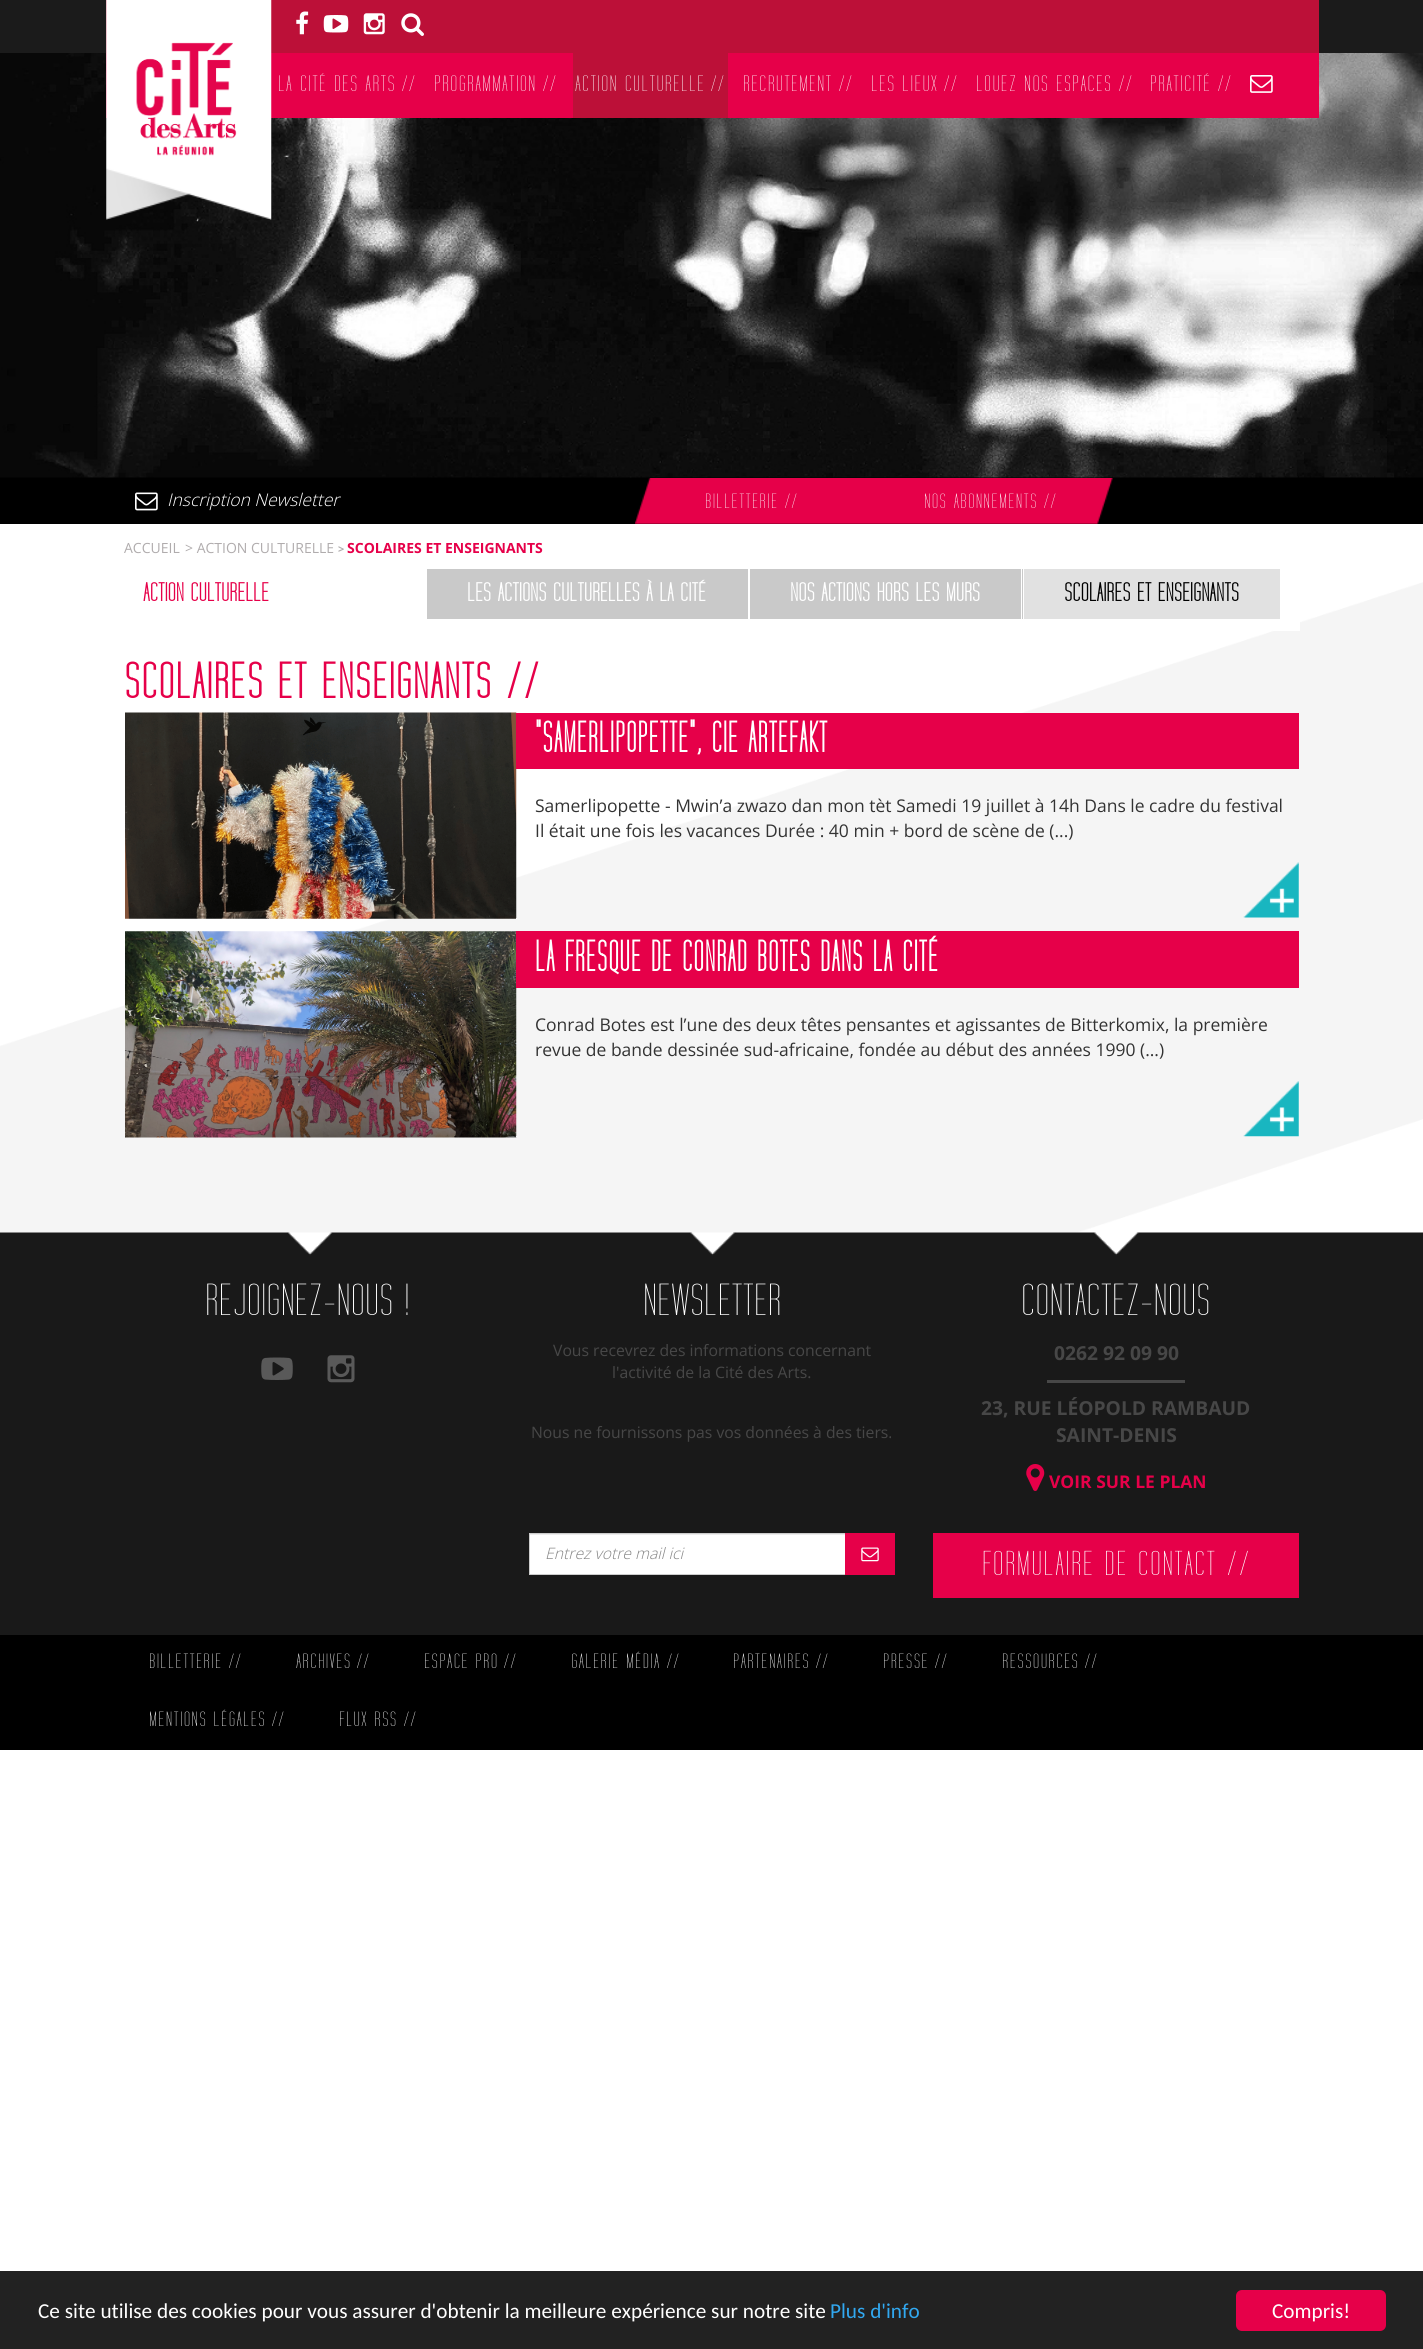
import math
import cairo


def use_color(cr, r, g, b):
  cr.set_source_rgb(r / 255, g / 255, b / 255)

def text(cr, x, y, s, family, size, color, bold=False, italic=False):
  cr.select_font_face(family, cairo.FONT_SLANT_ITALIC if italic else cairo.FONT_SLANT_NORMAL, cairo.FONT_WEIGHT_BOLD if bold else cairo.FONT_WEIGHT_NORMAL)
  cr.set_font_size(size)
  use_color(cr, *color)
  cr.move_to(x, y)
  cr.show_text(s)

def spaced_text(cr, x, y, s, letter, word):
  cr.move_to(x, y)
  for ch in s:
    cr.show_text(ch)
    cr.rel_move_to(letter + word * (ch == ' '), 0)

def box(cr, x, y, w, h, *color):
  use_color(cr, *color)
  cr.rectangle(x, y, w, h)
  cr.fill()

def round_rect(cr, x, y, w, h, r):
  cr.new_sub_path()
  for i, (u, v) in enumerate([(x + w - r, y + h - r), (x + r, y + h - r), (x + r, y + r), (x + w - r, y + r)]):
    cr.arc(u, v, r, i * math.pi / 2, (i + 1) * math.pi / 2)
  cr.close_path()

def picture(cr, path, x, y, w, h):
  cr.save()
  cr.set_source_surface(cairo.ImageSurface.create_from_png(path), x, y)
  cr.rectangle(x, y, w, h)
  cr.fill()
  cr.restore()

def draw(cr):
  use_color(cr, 255, 255, 255)
  cr.paint()
  box(cr, 0, 477, 1423, 47, 0, 0, 0)
  picture(cr, "img_01.png", 0, 53, 1423, 425)
  box(cr, 0, 0, 1423, 53, 27, 27, 27)
  box(cr, 106, 0, 1213, 53, 188, 16, 56)
  picture(cr, "img_02.png", 296, 11, 13, 24)
  picture(cr, "img_03.png", 323, 15, 26, 18)
  picture(cr, "img_04.png", 363, 13, 22, 22)
  picture(cr, "img_05.png", 401, 13, 23, 23)
  box(cr, 106, 53, 1213, 65, 230, 0, 73)
  picture(cr, "img_06.png", 106, 0, 166, 220)
  picture(cr, "img_07.png", 136, 42, 101, 114)
  box(cr, 573, 53, 155, 65, 188, 16, 56)
  picture(cr, "img_08.png", 1250, 75, 23, 18)
  picture(cr, "img_09.png", 135, 492, 23, 19)
  picture(cr, "img_10.png", 635, 478, 478, 46)
  picture(cr, "img_11.png", 0, 582, 1423, 651)
  box(cr, 1273, 622, 27, 9, 255, 255, 255)
  box(cr, 427, 569, 321, 50, 201, 201, 201)
  box(cr, 750, 569, 273, 50, 201, 201, 201)
  box(cr, 1021, 569, 1, 50, 255, 255, 255)
  box(cr, 1024, 569, 256, 50, 225, 225, 225)
  picture(cr, "img_12.png", 125, 712, 392, 207)
  box(cr, 516, 918, 1, 1, 247, 246, 246)
  box(cr, 516, 713, 783, 56, 230, 0, 73)
  picture(cr, "img_13.png", 1243, 862, 56, 56)
  picture(cr, "img_14.png", 125, 931, 392, 207)
  box(cr, 516, 1136, 1, 1, 247, 246, 246)
  box(cr, 516, 931, 783, 57, 230, 0, 73)
  picture(cr, "img_15.png", 1243, 1081, 56, 56)
  picture(cr, "img_16.png", 0, 1232, 1423, 33)
  box(cr, 0, 1265, 1423, 370, 25, 25, 25)
  picture(cr, "img_17.png", 261, 1357, 32, 23)
  picture(cr, "img_18.png", 327, 1355, 28, 28)
  box(cr, 530, 1535, 315, 39, 255, 255, 255)
  box(cr, 530, 1534, 315, 1, 236, 236, 236)
  cr.rectangle(529.5, 1533.5, 316, 41)
  use_color(cr, 204, 204, 204)
  cr.set_line_width(1)
  cr.stroke()
  box(cr, 845, 1533, 50, 42, 230, 0, 73)
  picture(cr, "img_19.png", 861, 1547, 18, 15)
  box(cr, 1047, 1380, 138, 3, 71, 71, 71)
  picture(cr, "img_20.png", 1026, 1464, 19, 27)
  box(cr, 933, 1533, 366, 65, 230, 0, 73)
  box(cr, 0, 1635, 1423, 115, 0, 0, 0)
  box(cr, 0, 2271, 1423, 78, 34, 34, 34)
  use_color(cr, 230, 0, 73)
  round_rect(cr, 1236, 2290, 150, 41, 6)
  cr.fill()
  cr.select_font_face("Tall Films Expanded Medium")
  cr.set_font_size(22.75)
  use_color(cr, 255, 255, 255)
  spaced_text(cr, 278, 91, "LA CITÉ DES ARTS", 1.25, 0)
  text(cr, 401, 91, "//", "Tall Films Expanded Medium", 22.75, (255, 255, 255))
  spaced_text(cr, 434, 91, "PROGRAMMATION", 1.25, 0)
  text(cr, 542, 91, "//", "Tall Films Expanded Medium", 22.75, (255, 255, 255))
  spaced_text(cr, 575, 91, "ACTION CULTURELLE", 1.25, 0)
  text(cr, 710, 91, "//", "Tall Films Expanded Medium", 22.75, (255, 255, 255))
  spaced_text(cr, 743, 91, "RECRUTEMENT", 1.25, 0)
  text(cr, 838, 91, "//", "Tall Films Expanded Medium", 22.75, (255, 255, 255))
  spaced_text(cr, 871, 91, "LES LIEUX", 1.25, 0)
  text(cr, 943, 91, "//", "Tall Films Expanded Medium", 22.75, (255, 255, 255))
  spaced_text(cr, 976, 91, "LOUEZ NOS ESPACES", 1.25, 0)
  text(cr, 1118, 91, "//", "Tall Films Expanded Medium", 22.75, (255, 255, 255))
  spaced_text(cr, 1150, 91, "PRATICITÉ", 1.25, 0)
  text(cr, 1217, 91, "//", "Tall Films Expanded Medium", 22.75, (255, 255, 255))
  text(cr, 167, 506, "Inscription Newsletter", "Open Sans Light", 17.5, (255, 255, 255), italic=True)
  cr.select_font_face("Tall Films Expanded Medium")
  cr.set_font_size(21)
  spaced_text(cr, 705, 508, "BILLETTERIE", 1.25, 0)
  text(cr, 784, 508, "//", "Tall Films Expanded Medium", 21, (255, 255, 255))
  spaced_text(cr, 924, 508, "NOS ABONNEMENTS", 1.25, 0)
  text(cr, 1043, 508, "//", "Tall Films Expanded Medium", 21, (255, 255, 255))
  text(cr, 124, 553, "ACCUEIL", "Open Sans", 14, (176, 172, 173))
  text(cr, 185, 553, "> ACTION CULTURELLE", "Open Sans", 14, (176, 172, 173))
  text(cr, 338, 553, ">", "Open Sans", 11, (176, 172, 173), bold=True)
  text(cr, 347, 553, "SCOLAIRES ET ENSEIGNANTS", "Open Sans", 14, (230, 0, 73), bold=True)
  text(cr, 143, 601, "ACTION CULTURELLE", "Tall Films Expanded", 26.25, (230, 0, 73), bold=True)
  text(cr, 467, 601, "LES ACTIONS CULTURELLES À LA CITÉ", "Tall Films Expanded", 26.25, (255, 255, 255), bold=True)
  text(cr, 790, 601, "NOS ACTIONS HORS LES MURS", "Tall Films Expanded", 26.25, (255, 255, 255), bold=True)
  text(cr, 1064, 601, "SCOLAIRES ET ENSEIGNANTS", "Tall Films Expanded", 26.25, (0, 0, 0), bold=True)
  cr.set_font_size(50.75)
  use_color(cr, 230, 0, 73)
  spaced_text(cr, 124, 698, "SCOLAIRES ET ENSEIGNANTS //", 1.25, 0)
  cr.select_font_face("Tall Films", cairo.FONT_SLANT_NORMAL, cairo.FONT_WEIGHT_BOLD)
  cr.set_font_size(43.75)
  use_color(cr, 255, 255, 255)
  spaced_text(cr, 535, 752, "\"SAMERLIPOPETTE\", CIE ARTEFAKT", 1.25, 0)
  text(cr, 535, 812, "Samerlipopette - Mwin’a zwazo dan mon tèt Samedi 19 juillet à 14h Dans le cadre du festival", "Open Sans", 17.5, (51, 51, 51))
  text(cr, 535, 837, "Il était une fois les vacances Durée : 40 min + bord de scène de (...)", "Open Sans", 17.5, (51, 51, 51))
  cr.select_font_face("Tall Films", cairo.FONT_SLANT_NORMAL, cairo.FONT_WEIGHT_BOLD)
  cr.set_font_size(43.75)
  use_color(cr, 255, 255, 255)
  spaced_text(cr, 535, 971, "LA FRESQUE DE CONRAD BOTES DANS LA CITÉ", 1.25, 0)
  text(cr, 535, 1031, "Conrad Botes est l’une des deux têtes pensantes et agissantes de Bitterkomix, la première", "Open Sans", 17.5, (51, 51, 51))
  text(cr, 535, 1056, "revue de bande dessinée sud-africaine, fondée au début des années 1990 (...)", "Open Sans", 17.5, (51, 51, 51))
  text(cr, 205, 1315, "REJOIGNEZ-NOUS !", "Tall Films Expanded Medium", 45.5, (255, 255, 255))
  text(cr, 643, 1315, "NEWSLETTER", "Tall Films Expanded Medium", 45.5, (255, 255, 255))
  text(cr, 553, 1356, "Vous recevrez des informations concernant", "Open Sans", 15.75, (71, 71, 71))
  text(cr, 612, 1378, "l'activité de la Cité des Arts.", "Open Sans", 15.75, (71, 71, 71))
  text(cr, 531, 1438, "Nous ne fournissons pas vos données à des tiers.", "Open Sans", 15.75, (71, 71, 71))
  text(cr, 545, 1559, "Entrez votre mail ici", "Open Sans Light", 15.75, (133, 133, 133), italic=True)
  text(cr, 1021, 1315, "CONTACTEZ-NOUS", "Tall Films Expanded Medium", 45.5, (255, 255, 255))
  text(cr, 1054, 1360, "0262 92 09 90", "Open Sans", 19.25, (71, 71, 71), bold=True)
  text(cr, 981, 1415, "23, RUE LÉOPOLD RAMBAUD", "Open Sans", 19.25, (71, 71, 71), bold=True)
  text(cr, 1056, 1442, "SAINT-DENIS", "Open Sans", 19.25, (71, 71, 71), bold=True)
  text(cr, 1049, 1488, "VOIR SUR LE PLAN", "Open Sans", 17.5, (230, 0, 73), bold=True)
  cr.select_font_face("Tall Films Expanded Medium")
  cr.set_font_size(35)
  use_color(cr, 255, 255, 255)
  spaced_text(cr, 982, 1575, "FORMULAIRE DE CONTACT //", 1.25, 0)
  cr.set_font_size(21)
  spaced_text(cr, 149, 1668, "BILLETTERIE", 1.25, 0)
  text(cr, 228, 1668, "//", "Tall Films Expanded Medium", 21, (255, 255, 255))
  spaced_text(cr, 296, 1668, "ARCHIVES", 1.25, 0)
  text(cr, 356, 1668, "//", "Tall Films Expanded Medium", 21, (255, 255, 255))
  spaced_text(cr, 424, 1668, "ESPACE PRO", 1.25, 0)
  text(cr, 503, 1668, "//", "Tall Films Expanded Medium", 21, (255, 255, 255))
  spaced_text(cr, 571, 1668, "GALERIE MÉDIA", 1.25, 0)
  text(cr, 666, 1668, "//", "Tall Films Expanded Medium", 21, (255, 255, 255))
  spaced_text(cr, 733, 1668, "PARTENAIRES", 1.25, 0)
  text(cr, 815, 1668, "//", "Tall Films Expanded Medium", 21, (255, 255, 255))
  spaced_text(cr, 883, 1668, "PRESSE", 1.25, 0)
  text(cr, 934, 1668, "//", "Tall Films Expanded Medium", 21, (255, 255, 255))
  spaced_text(cr, 1002, 1668, "RESSOURCES", 1.25, 0)
  text(cr, 1084, 1668, "//", "Tall Films Expanded Medium", 21, (255, 255, 255))
  spaced_text(cr, 149, 1726, "MENTIONS LÉGALES", 1.25, 0)
  text(cr, 271, 1726, "//", "Tall Films Expanded Medium", 21, (255, 255, 255))
  spaced_text(cr, 339, 1726, "FLUX RSS", 1.25, 0)
  text(cr, 403, 1726, "//", "Tall Films Expanded Medium", 21, (255, 255, 255))
  text(cr, 38, 2318, "Ce site utilise des cookies pour vous assurer d'obtenir la meilleure expérience sur notre site", "Carlito", 21.25, (255, 255, 255))
  text(cr, 830, 2318, "Plus d'info", "Carlito", 21.25, (49, 168, 240))
  text(cr, 1272, 2318, "Compris!", "Carlito", 21.25, (255, 255, 255))


surface = cairo.ImageSurface(cairo.FORMAT_RGB24, 1423, 2349)
cr = cairo.Context(surface)
options = cairo.FontOptions()
options.set_hint_metrics(cairo.HINT_METRICS_OFF)
options.set_hint_style(cairo.HINT_STYLE_NONE)
cr.set_font_options(options)
cr.set_miter_limit(4)
draw(cr)
surface.write_to_png("out.png")
